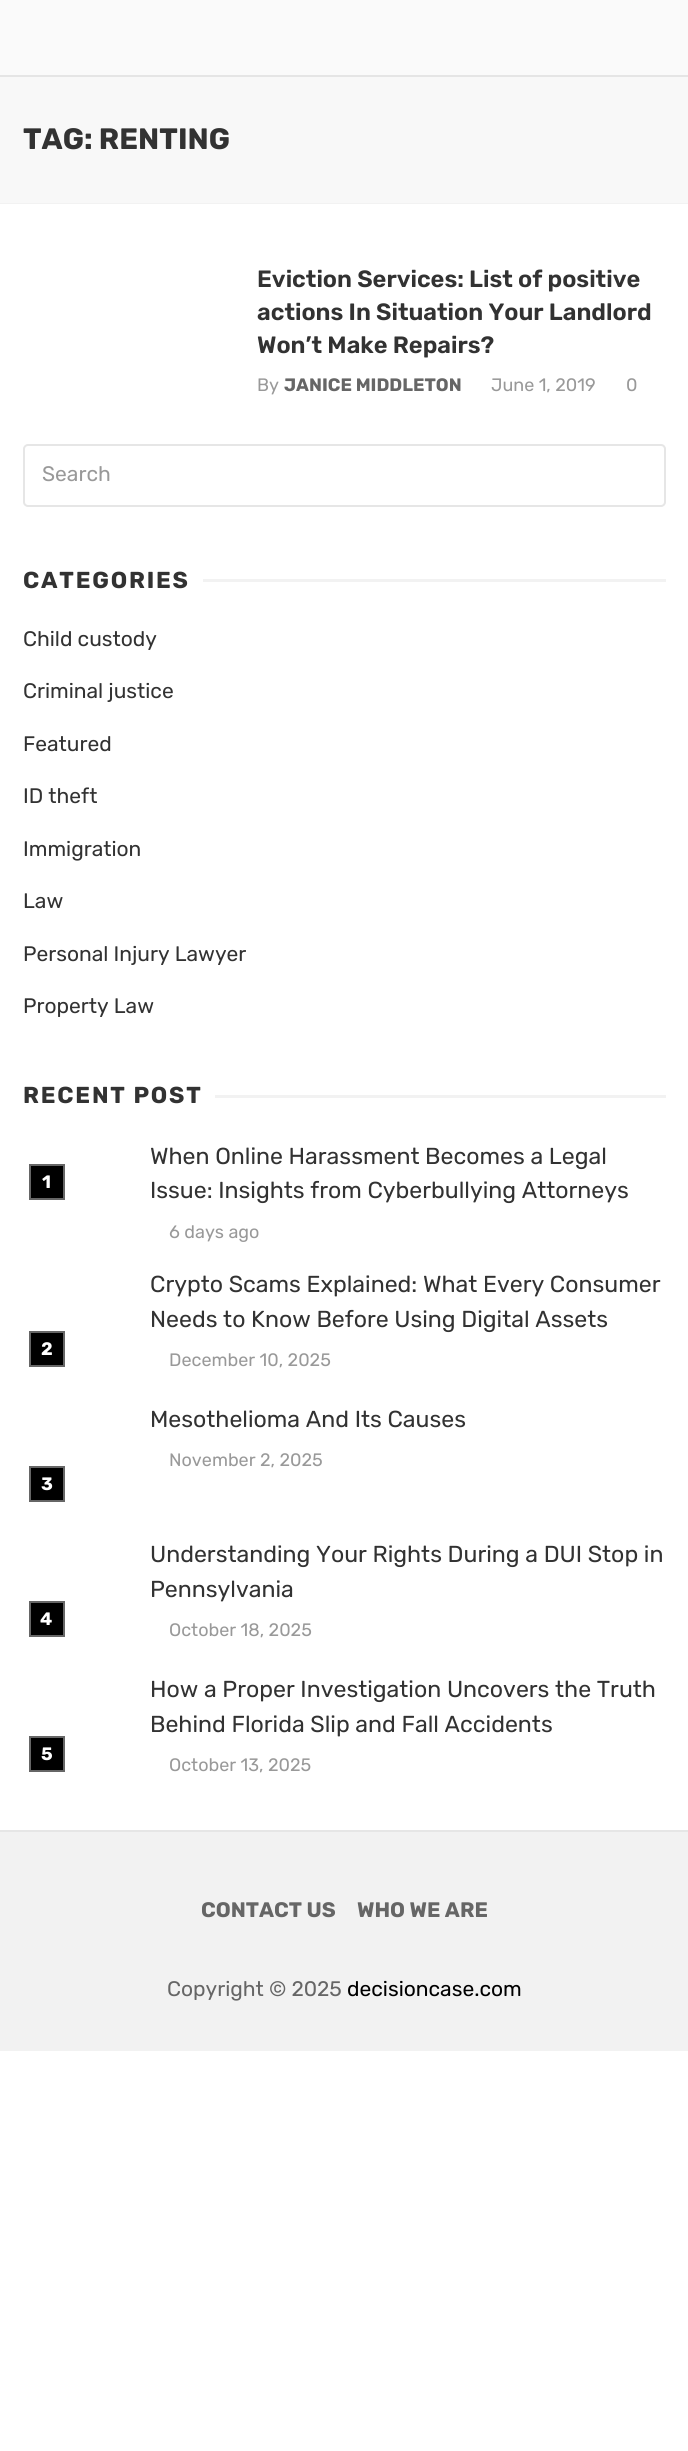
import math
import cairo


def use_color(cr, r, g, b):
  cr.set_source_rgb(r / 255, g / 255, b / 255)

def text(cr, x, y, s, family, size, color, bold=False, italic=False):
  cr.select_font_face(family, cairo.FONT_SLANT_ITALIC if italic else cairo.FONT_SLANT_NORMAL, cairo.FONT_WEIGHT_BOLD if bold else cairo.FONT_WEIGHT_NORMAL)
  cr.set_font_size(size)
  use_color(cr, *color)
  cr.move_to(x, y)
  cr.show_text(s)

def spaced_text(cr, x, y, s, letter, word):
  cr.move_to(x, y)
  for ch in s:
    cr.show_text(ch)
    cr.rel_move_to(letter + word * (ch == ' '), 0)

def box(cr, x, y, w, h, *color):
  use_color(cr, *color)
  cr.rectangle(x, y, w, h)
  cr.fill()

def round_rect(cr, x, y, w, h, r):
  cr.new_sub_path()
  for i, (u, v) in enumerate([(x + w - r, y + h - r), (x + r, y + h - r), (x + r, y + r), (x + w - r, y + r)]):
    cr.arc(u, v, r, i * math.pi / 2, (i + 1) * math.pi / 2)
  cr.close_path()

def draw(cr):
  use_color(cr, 255, 255, 255)
  cr.paint()
  cr.rectangle(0, 75, 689, 128)
  use_color(cr, 242, 242, 242)
  cr.stroke()
  use_color(cr, 238, 238, 238)
  cr.new_path()
  cr.move_to(0, 75)
  cr.line_to(0, 77)
  cr.line_to(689, 77)
  cr.line_to(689, 2)
  cr.line_to(688, 2)
  cr.line_to(688, 75)
  cr.close_path()
  cr.fill()
  cr.set_source_rgba(0, 0, 0, 0.04)
  cr.new_path()
  cr.move_to(0, 75)
  cr.line_to(0, 77)
  cr.line_to(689, 77)
  cr.line_to(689, 2)
  cr.line_to(688, 2)
  cr.line_to(688, 75)
  cr.close_path()
  cr.fill()
  box(cr, 0, 0, 688, 75, 250, 250, 250)
  box(cr, 0, 77, 688, 126, 248, 248, 248)
  round_rect(cr, 24, 445, 641, 61, 4)
  use_color(cr, 230, 230, 230)
  cr.stroke()
  box(cr, 203, 579, 463, 3, 242, 242, 242)
  box(cr, 215, 1095, 451, 3, 242, 242, 242)
  use_color(cr, 0, 0, 0)
  cr.rectangle(30, 1165, 34, 34)
  cr.fill_preserve()
  use_color(cr, 102, 102, 102)
  cr.stroke()
  use_color(cr, 0, 0, 0)
  cr.rectangle(30, 1332, 34, 34)
  cr.fill_preserve()
  use_color(cr, 102, 102, 102)
  cr.stroke()
  use_color(cr, 0, 0, 0)
  cr.rectangle(30, 1467, 34, 34)
  cr.fill_preserve()
  use_color(cr, 102, 102, 102)
  cr.stroke()
  use_color(cr, 0, 0, 0)
  cr.rectangle(30, 1602, 34, 34)
  cr.fill_preserve()
  use_color(cr, 102, 102, 102)
  cr.stroke()
  use_color(cr, 0, 0, 0)
  cr.rectangle(30, 1737, 34, 34)
  cr.fill_preserve()
  use_color(cr, 102, 102, 102)
  cr.stroke()
  box(cr, 0, 1832, 688, 219, 242, 242, 242)
  box(cr, 0, 1830, 688, 2, 230, 230, 230)
  text(cr, 23, 149, "TAG: RENTING", "Rubik", 29.5, (50, 50, 50), bold=True)
  text(cr, 257, 287, "Eviction Services: List of positive", "Rubik SemiBold", 23.6, (50, 50, 50))
  text(cr, 257, 320, "actions In Situation Your Landlord", "Rubik SemiBold", 23.6, (50, 50, 50))
  text(cr, 257, 353, "Won’t Make Repairs?", "Rubik SemiBold", 23.6, (50, 50, 50))
  text(cr, 257, 391, "By", "Rubik", 18, (153, 153, 153))
  text(cr, 284, 391, "JANICE MIDDLETON", "Rubik", 18, (102, 102, 102), bold=True)
  text(cr, 491, 391, "June 1, 2019", "Rubik", 18, (153, 153, 153))
  text(cr, 626, 391, "0", "Rubik", 18, (153, 153, 153))
  text(cr, 42, 481, "Search", "Rubik", 21, (153, 153, 153))
  cr.select_font_face("Rubik", cairo.FONT_SLANT_NORMAL, cairo.FONT_WEIGHT_BOLD)
  cr.set_font_size(23.1)
  use_color(cr, 50, 50, 50)
  spaced_text(cr, 23, 588, "CATEGORIES", 1.8, 0)
  text(cr, 23, 646, "Child custody", "Rubik", 21, (50, 50, 50))
  text(cr, 23, 698, "Criminal justice", "Rubik", 21, (50, 50, 50))
  text(cr, 23, 751, "Featured", "Rubik", 21, (50, 50, 50))
  text(cr, 23, 803, "ID theft", "Rubik", 21, (50, 50, 50))
  text(cr, 23, 856, "Immigration", "Rubik", 21, (50, 50, 50))
  text(cr, 23, 908, "Law", "Rubik", 21, (50, 50, 50))
  text(cr, 23, 961, "Personal Injury Lawyer", "Rubik", 21, (50, 50, 50))
  text(cr, 23, 1013, "Property Law", "Rubik", 21, (50, 50, 50))
  cr.select_font_face("Rubik", cairo.FONT_SLANT_NORMAL, cairo.FONT_WEIGHT_BOLD)
  cr.set_font_size(23.1)
  spaced_text(cr, 23, 1103, "RECENT POST", 1.8, 0)
  text(cr, 42, 1188, "1", "Rubik", 18, (255, 255, 255), bold=True)
  text(cr, 150, 1164, "When Online Harassment Becomes a Legal", "Rubik", 23.1, (50, 50, 50))
  text(cr, 150, 1198, "Issue: Insights from Cyberbullying Attorneys", "Rubik", 23.1, (50, 50, 50))
  text(cr, 169, 1238, "6 days ago", "Rubik", 18, (153, 153, 153))
  text(cr, 41, 1355, "2", "Rubik", 18, (255, 255, 255), bold=True)
  text(cr, 150, 1292, "Crypto Scams Explained: What Every Consumer", "Rubik", 23.1, (50, 50, 50))
  text(cr, 150, 1327, "Needs to Know Before Using Digital Assets", "Rubik", 23.1, (50, 50, 50))
  text(cr, 169, 1366, "December 10, 2025", "Rubik", 18, (153, 153, 153))
  text(cr, 150, 1427, "Mesothelioma And Its Causes", "Rubik", 23.1, (50, 50, 50))
  text(cr, 169, 1466, "November 2, 2025", "Rubik", 18, (153, 153, 153))
  text(cr, 41, 1490, "3", "Rubik", 18, (255, 255, 255), bold=True)
  text(cr, 40, 1625, "4", "Rubik", 18, (255, 255, 255), bold=True)
  text(cr, 150, 1562, "Understanding Your Rights During a DUI Stop in", "Rubik", 23.1, (50, 50, 50))
  text(cr, 150, 1597, "Pennsylvania", "Rubik", 23.1, (50, 50, 50))
  text(cr, 169, 1636, "October 18, 2025", "Rubik", 18, (153, 153, 153))
  text(cr, 41, 1760, "5", "Rubik", 18, (255, 255, 255), bold=True)
  text(cr, 150, 1697, "How a Proper Investigation Uncovers the Truth", "Rubik", 23.1, (50, 50, 50))
  text(cr, 150, 1732, "Behind Florida Slip and Fall Accidents", "Rubik", 23.1, (50, 50, 50))
  text(cr, 169, 1771, "October 13, 2025", "Rubik", 18, (153, 153, 153))
  text(cr, 201, 1917, "CONTACT US", "Rubik", 21, (102, 102, 102), bold=True)
  text(cr, 357, 1917, "WHO WE ARE", "Rubik", 21, (102, 102, 102), bold=True)
  text(cr, 167, 1996, "Copyright © 2025", "Rubik", 21, (102, 102, 102))
  text(cr, 347, 1996, "decisioncase.com", "Rubik", 21, (0, 0, 0))


surface = cairo.ImageSurface(cairo.FORMAT_RGB24, 688, 2451)
cr = cairo.Context(surface)
options = cairo.FontOptions()
options.set_hint_metrics(cairo.HINT_METRICS_OFF)
options.set_hint_style(cairo.HINT_STYLE_NONE)
cr.set_font_options(options)
cr.set_miter_limit(4)
draw(cr)
surface.write_to_png("out.png")
